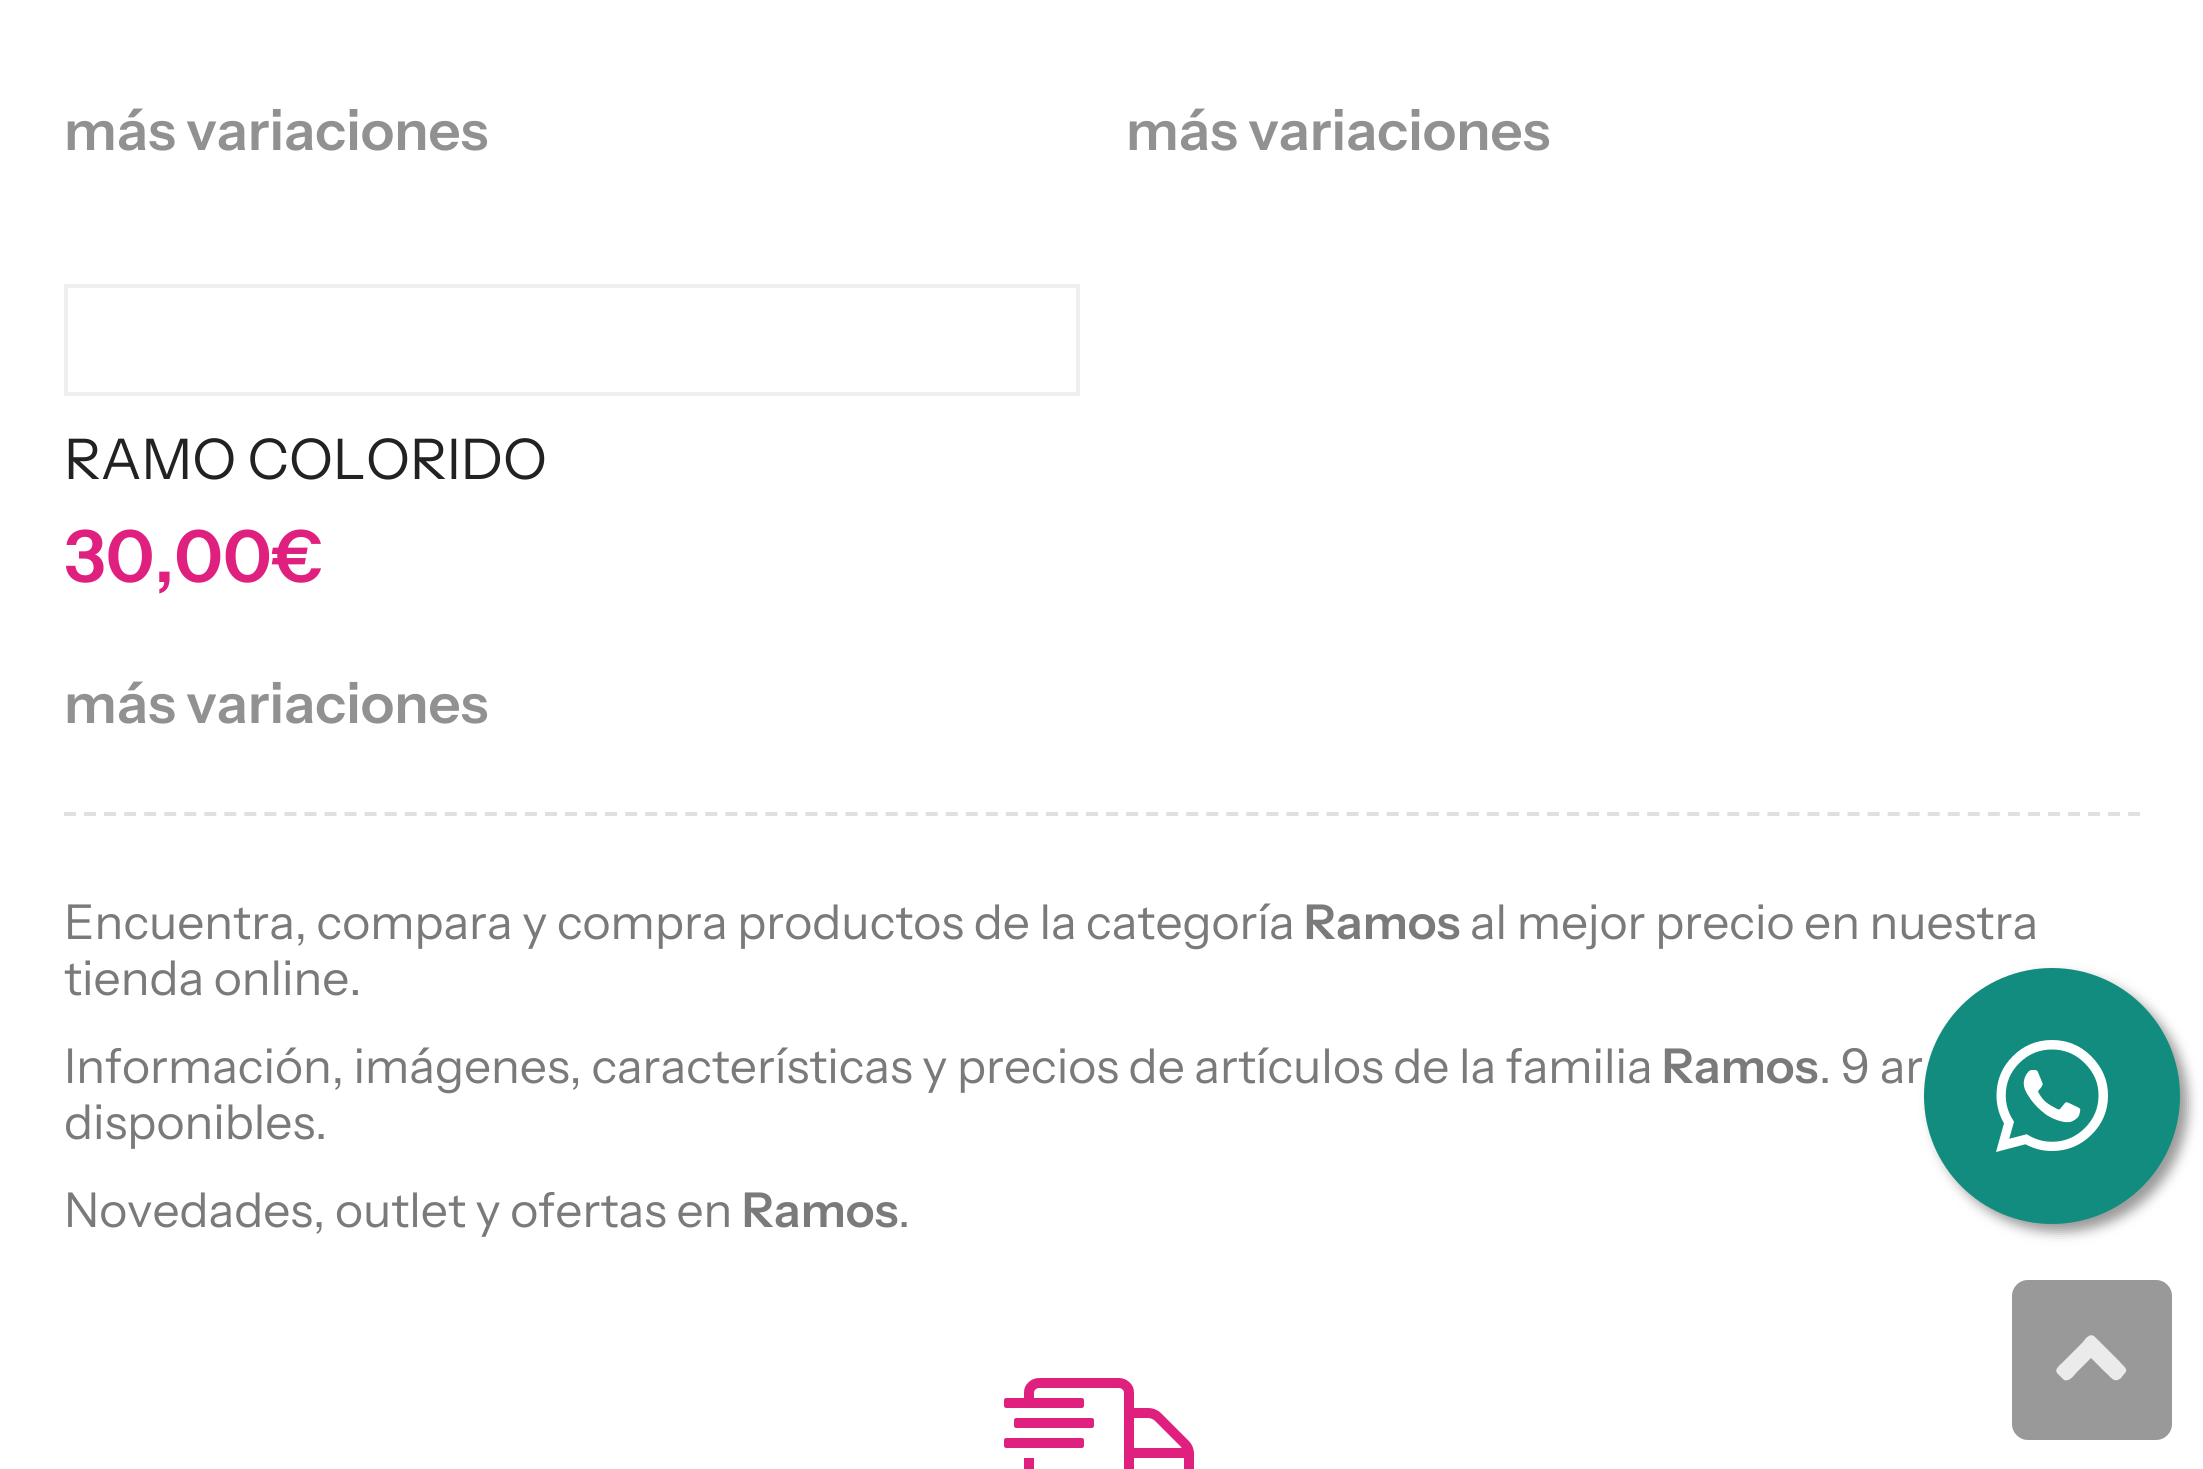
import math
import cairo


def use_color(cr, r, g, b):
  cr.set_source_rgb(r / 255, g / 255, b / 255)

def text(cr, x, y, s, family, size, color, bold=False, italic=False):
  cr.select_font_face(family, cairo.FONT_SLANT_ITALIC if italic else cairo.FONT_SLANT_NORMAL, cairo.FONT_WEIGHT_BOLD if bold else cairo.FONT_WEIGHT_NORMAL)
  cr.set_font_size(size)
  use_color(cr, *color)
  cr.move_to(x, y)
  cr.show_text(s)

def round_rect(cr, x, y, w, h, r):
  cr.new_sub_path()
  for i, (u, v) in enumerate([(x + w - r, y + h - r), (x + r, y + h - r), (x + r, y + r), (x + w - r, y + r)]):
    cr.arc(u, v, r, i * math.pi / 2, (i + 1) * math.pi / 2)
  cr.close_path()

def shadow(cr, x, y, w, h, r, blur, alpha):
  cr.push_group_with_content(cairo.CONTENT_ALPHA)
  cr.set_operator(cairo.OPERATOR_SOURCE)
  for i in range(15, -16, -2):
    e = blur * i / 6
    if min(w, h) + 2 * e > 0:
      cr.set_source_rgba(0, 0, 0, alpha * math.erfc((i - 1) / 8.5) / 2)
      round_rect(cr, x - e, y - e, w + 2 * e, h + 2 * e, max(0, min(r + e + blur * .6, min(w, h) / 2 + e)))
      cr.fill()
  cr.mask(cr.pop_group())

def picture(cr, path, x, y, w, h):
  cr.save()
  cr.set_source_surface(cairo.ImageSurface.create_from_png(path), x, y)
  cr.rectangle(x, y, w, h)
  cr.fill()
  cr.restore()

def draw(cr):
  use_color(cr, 255, 255, 255)
  cr.paint()
  cr.rectangle(66, 286, 1012, 108)
  use_color(cr, 238, 238, 238)
  cr.set_line_width(4)
  cr.stroke()
  cr.new_path()
  cr.move_to(64, 814)
  cr.line_to(2140, 814)
  use_color(cr, 224, 224, 224)
  cr.set_dash([12, 8.04])
  cr.stroke()
  picture(cr, "img_01.png", 1004, 1378, 190, 91)
  use_color(cr, 0, 0, 0)
  shadow(cr, 1932, 976, 256, 256, 128, 6, 0.4)
  use_color(cr, 18, 140, 126)
  cr.arc(2052, 1096, 128, 0, 2 * math.pi)
  cr.fill()
  picture(cr, "img_02.png", 1996, 1040, 112, 112)
  use_color(cr, 153, 153, 153)
  round_rect(cr, 2012, 1280, 160, 160, 16)
  cr.fill()
  use_color(cr, 235, 235, 235)
  cr.new_path()
  cr.move_to(2095, 1337)
  cr.line_to(2120, 1362)
  cr.curve_to(2122, 1365, 2129, 1369, 2125, 1373)
  cr.line_to(2121, 1378)
  cr.curve_to(2114, 1384, 2111, 1377, 2105, 1372)
  cr.line_to(2091, 1358)
  cr.line_to(2077, 1372)
  cr.curve_to(2074, 1375, 2070, 1382, 2064, 1380)
  cr.line_to(2059, 1375)
  cr.curve_to(2053, 1370, 2058, 1367, 2063, 1362)
  cr.line_to(2083, 1342)
  cr.curve_to(2085, 1339, 2090, 1332, 2095, 1337)
  cr.close_path()
  cr.fill()
  text(cr, 64, 150, "más variaciones", "Instrument Sans SemiBold", 56, (145, 145, 145))
  text(cr, 1126, 150, "más variaciones", "Instrument Sans SemiBold", 56, (145, 145, 145))
  text(cr, 64, 479, "RAMO COLORIDO", "Instrument Sans", 56, (34, 34, 34))
  text(cr, 64, 582, "30,00€", "Instrument Sans SemiBold", 72, (224, 32, 126))
  text(cr, 64, 723, "más variaciones", "Instrument Sans SemiBold", 56, (145, 145, 145))
  text(cr, 64, 939, "Encuentra, compara y compra productos de la categoría", "Instrument Sans", 48, (122, 122, 122))
  text(cr, 1304, 939, "Ramos", "Instrument Sans SemiBold", 48, (122, 122, 122))
  text(cr, 1470, 939, "al mejor precio en nuestra", "Instrument Sans", 48, (122, 122, 122))
  text(cr, 64, 995, "tienda online.", "Instrument Sans", 48, (122, 122, 122))
  text(cr, 64, 1083, "Información, imágenes, características y precios de artículos de la familia", "Instrument Sans", 48, (122, 122, 122))
  text(cr, 1662, 1083, "Ramos", "Instrument Sans SemiBold", 48, (122, 122, 122))
  text(cr, 1819, 1083, ". 9 ar", "Instrument Sans", 48, (122, 122, 122))
  text(cr, 64, 1139, "disponibles.", "Instrument Sans", 48, (122, 122, 122))
  text(cr, 64, 1227, "Novedades, outlet y ofertas en", "Instrument Sans", 48, (122, 122, 122))
  text(cr, 742, 1227, "Ramos", "Instrument Sans SemiBold", 48, (122, 122, 122))
  text(cr, 898, 1227, ".", "Instrument Sans", 48, (122, 122, 122))


surface = cairo.ImageSurface(cairo.FORMAT_RGB24, 2203, 1469)
cr = cairo.Context(surface)
options = cairo.FontOptions()
options.set_hint_metrics(cairo.HINT_METRICS_OFF)
options.set_hint_style(cairo.HINT_STYLE_NONE)
cr.set_font_options(options)
cr.set_miter_limit(4)
draw(cr)
surface.write_to_png("out.png")
